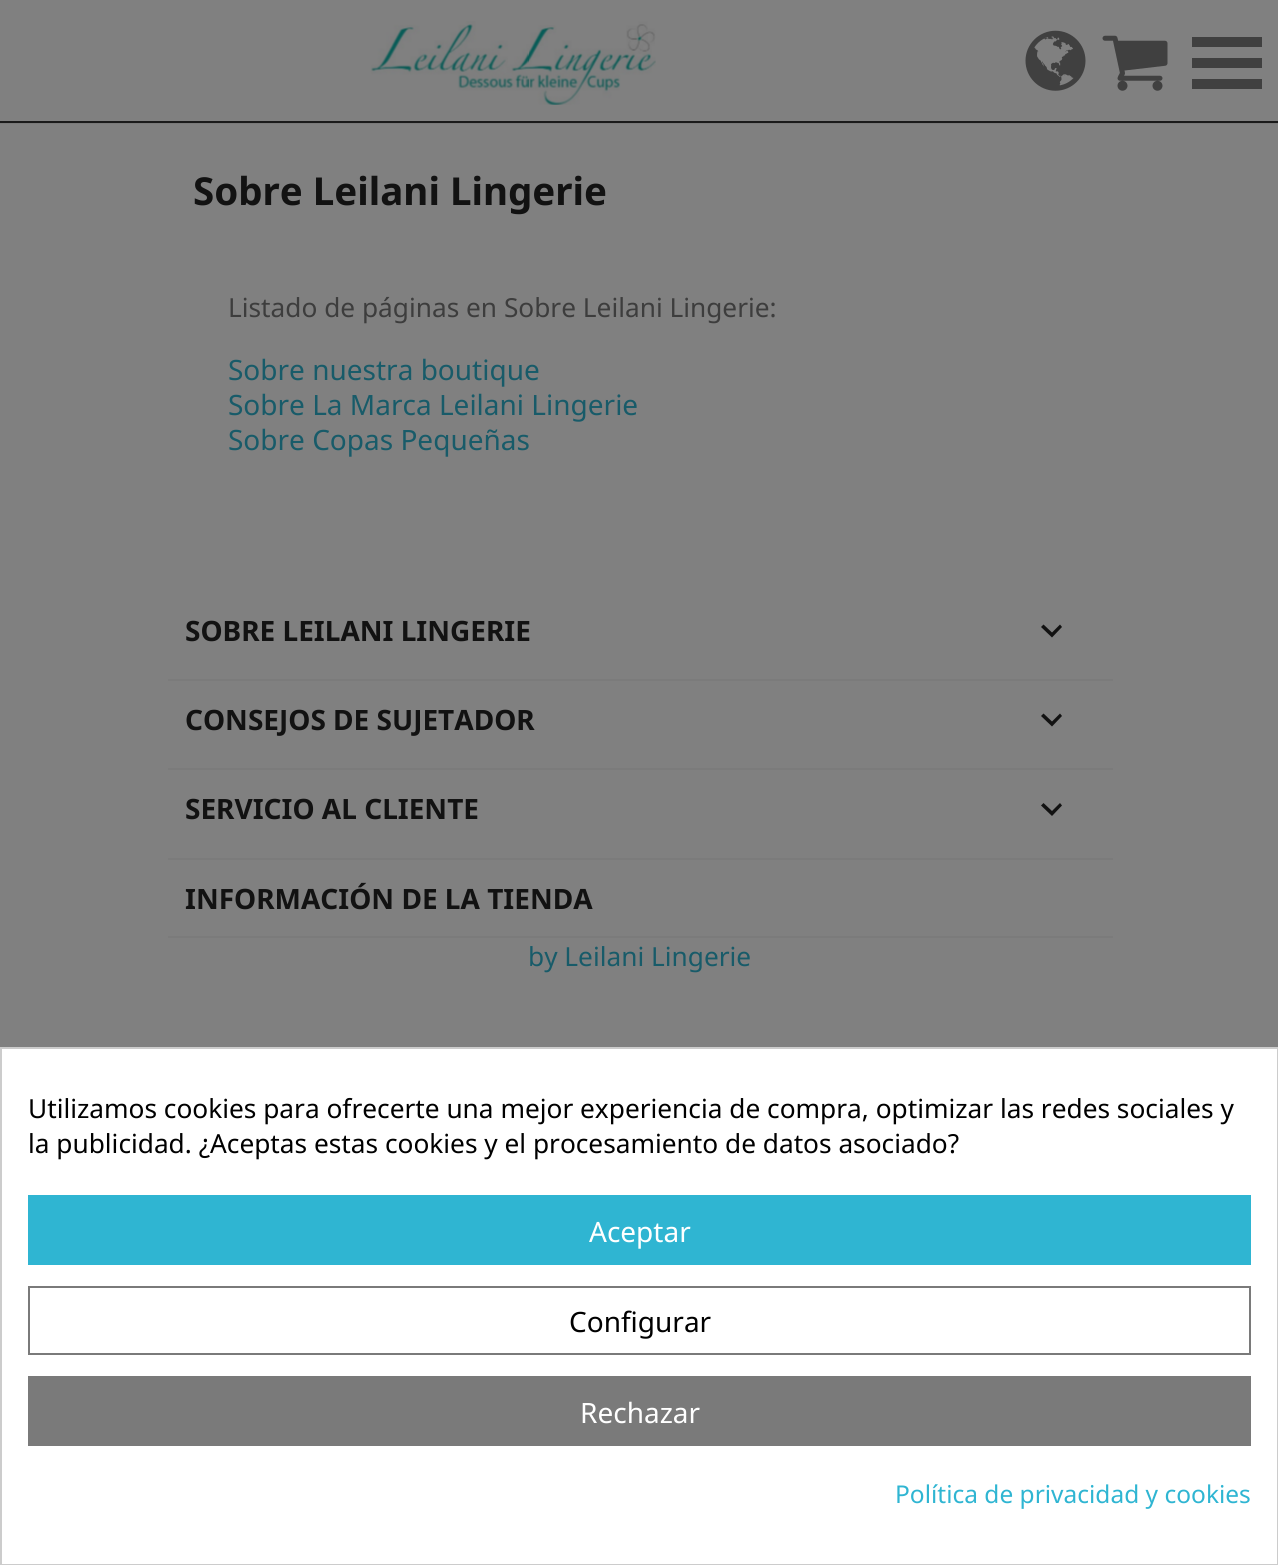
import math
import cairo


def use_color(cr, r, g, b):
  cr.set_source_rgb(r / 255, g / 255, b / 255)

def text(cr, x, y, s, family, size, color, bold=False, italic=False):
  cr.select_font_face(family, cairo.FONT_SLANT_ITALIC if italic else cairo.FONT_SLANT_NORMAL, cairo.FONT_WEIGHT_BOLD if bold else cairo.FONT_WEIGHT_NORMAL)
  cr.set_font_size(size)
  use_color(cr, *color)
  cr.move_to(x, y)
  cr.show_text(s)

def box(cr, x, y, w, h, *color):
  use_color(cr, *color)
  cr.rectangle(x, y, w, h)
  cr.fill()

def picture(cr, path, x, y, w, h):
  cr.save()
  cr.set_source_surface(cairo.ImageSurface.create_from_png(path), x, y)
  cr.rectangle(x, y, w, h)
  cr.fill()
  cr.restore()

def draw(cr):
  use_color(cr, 128, 128, 128)
  cr.paint()
  box(cr, 0, 121, 1278, 2, 26, 26, 26)
  picture(cr, "img_01.png", 370, 21, 286, 84)
  picture(cr, "img_02.png", 1025, 30, 61, 61)
  picture(cr, "img_03.png", 1102, 35, 66, 56)
  box(cr, 1192, 79, 70, 10, 64, 64, 64)
  box(cr, 1192, 58, 70, 10, 64, 64, 64)
  box(cr, 1192, 37, 70, 10, 64, 64, 64)
  box(cr, 0, 123, 1278, 1, 121, 121, 121)
  box(cr, 168, 679, 945, 2, 123, 123, 123)
  use_color(cr, 18, 18, 18)
  cr.new_path()
  cr.move_to(1043.5, 624.5)
  cr.line_to(1052, 632.5)
  cr.line_to(1060, 624.5)
  cr.line_to(1062, 627)
  cr.line_to(1052, 637.5)
  cr.line_to(1041, 627)
  cr.close_path()
  cr.fill()
  box(cr, 168, 768, 945, 2, 123, 123, 123)
  use_color(cr, 18, 18, 18)
  cr.new_path()
  cr.move_to(1043.5, 713.5)
  cr.line_to(1052, 721.5)
  cr.line_to(1060, 713.5)
  cr.line_to(1062, 716)
  cr.line_to(1052, 726.5)
  cr.line_to(1041, 716)
  cr.close_path()
  cr.fill()
  box(cr, 168, 858, 945, 2, 123, 123, 123)
  use_color(cr, 18, 18, 18)
  cr.new_path()
  cr.move_to(1043.5, 803)
  cr.line_to(1052, 811)
  cr.line_to(1060, 803)
  cr.line_to(1062, 805.5)
  cr.line_to(1052, 816)
  cr.line_to(1041, 805.5)
  cr.close_path()
  cr.fill()
  box(cr, 168, 936, 945, 2, 123, 123, 123)
  use_color(cr, 255, 255, 255)
  cr.rectangle(1, 1048, 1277, 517)
  cr.fill_preserve()
  use_color(cr, 204, 204, 204)
  cr.stroke()
  box(cr, 28, 1195, 1223, 70, 47, 181, 210)
  cr.rectangle(29, 1287, 1221, 67)
  use_color(cr, 122, 122, 122)
  cr.stroke()
  box(cr, 28, 1376, 1223, 70, 122, 122, 122)
  text(cr, 193, 205, "Sobre Leilani Lingerie", "Noto Sans", 38.5, (18, 18, 18), bold=True)
  text(cr, 228, 317, "Listado de páginas en Sobre Leilani Lingerie:", "Noto Sans", 26.25, (61, 61, 61))
  text(cr, 228, 380, "Sobre nuestra boutique", "Noto Sans", 28, (24, 91, 105))
  text(cr, 228, 415, "Sobre La Marca Leilani Lingerie", "Noto Sans", 28, (24, 91, 105))
  text(cr, 228, 450, "Sobre Copas Pequeñas", "Noto Sans", 28, (24, 91, 105))
  text(cr, 185, 641, "SOBRE LEILANI LINGERIE", "Noto Sans", 28, (18, 18, 18), bold=True)
  text(cr, 185, 730, "CONSEJOS DE SUJETADOR", "Noto Sans", 28, (18, 18, 18), bold=True)
  text(cr, 185, 819, "SERVICIO AL CLIENTE", "Noto Sans", 28, (18, 18, 18), bold=True)
  text(cr, 185, 909, "INFORMACIÓN DE LA TIENDA", "Noto Sans", 28, (18, 18, 18), bold=True)
  text(cr, 528, 966, "by Leilani Lingerie", "Noto Sans", 26.25, (24, 91, 105))
  text(cr, 28, 1118, "Utilizamos cookies para ofrecerte una mejor experiencia de compra, optimizar las redes sociales y", "Noto Sans", 26.25, (0, 0, 0))
  text(cr, 28, 1153, "la publicidad. ¿Aceptas estas cookies y el procesamiento de datos asociado?", "Noto Sans", 26.25, (0, 0, 0))
  text(cr, 589, 1242, "Aceptar", "Noto Sans", 28, (255, 255, 255))
  text(cr, 569, 1332, "Configurar", "Noto Sans", 28, (0, 0, 0))
  text(cr, 580, 1423, "Rechazar", "Noto Sans", 28, (255, 255, 255))
  text(cr, 895, 1503, "Política de privacidad y cookies", "Noto Sans", 24.5, (47, 181, 210))


surface = cairo.ImageSurface(cairo.FORMAT_RGB24, 1278, 1565)
cr = cairo.Context(surface)
options = cairo.FontOptions()
options.set_hint_metrics(cairo.HINT_METRICS_OFF)
options.set_hint_style(cairo.HINT_STYLE_NONE)
cr.set_font_options(options)
cr.set_miter_limit(4)
draw(cr)
surface.write_to_png("out.png")
